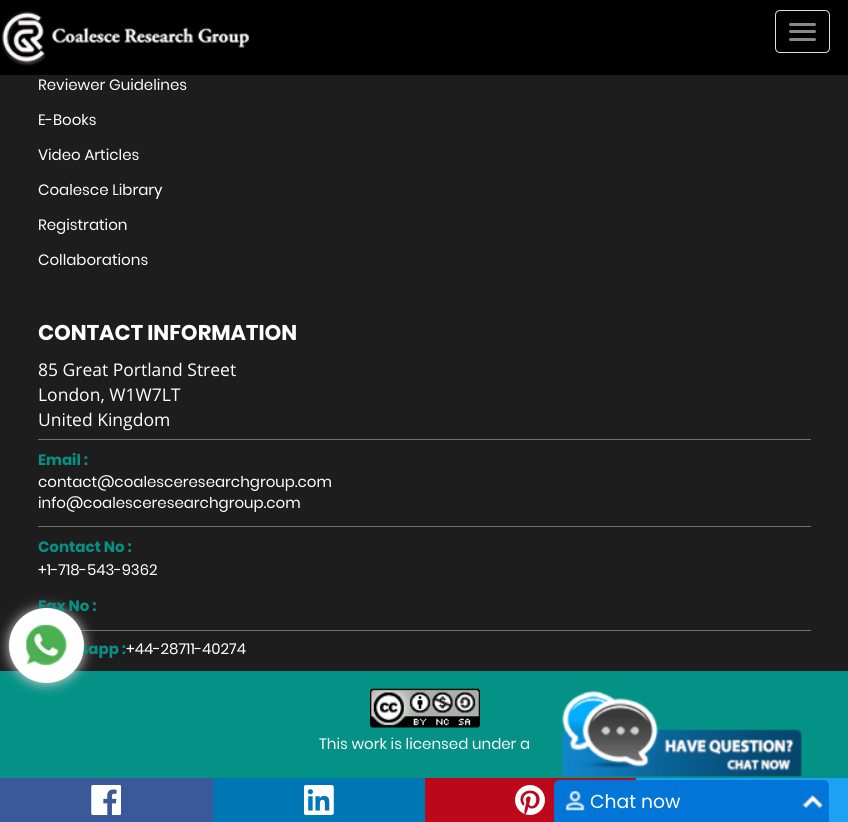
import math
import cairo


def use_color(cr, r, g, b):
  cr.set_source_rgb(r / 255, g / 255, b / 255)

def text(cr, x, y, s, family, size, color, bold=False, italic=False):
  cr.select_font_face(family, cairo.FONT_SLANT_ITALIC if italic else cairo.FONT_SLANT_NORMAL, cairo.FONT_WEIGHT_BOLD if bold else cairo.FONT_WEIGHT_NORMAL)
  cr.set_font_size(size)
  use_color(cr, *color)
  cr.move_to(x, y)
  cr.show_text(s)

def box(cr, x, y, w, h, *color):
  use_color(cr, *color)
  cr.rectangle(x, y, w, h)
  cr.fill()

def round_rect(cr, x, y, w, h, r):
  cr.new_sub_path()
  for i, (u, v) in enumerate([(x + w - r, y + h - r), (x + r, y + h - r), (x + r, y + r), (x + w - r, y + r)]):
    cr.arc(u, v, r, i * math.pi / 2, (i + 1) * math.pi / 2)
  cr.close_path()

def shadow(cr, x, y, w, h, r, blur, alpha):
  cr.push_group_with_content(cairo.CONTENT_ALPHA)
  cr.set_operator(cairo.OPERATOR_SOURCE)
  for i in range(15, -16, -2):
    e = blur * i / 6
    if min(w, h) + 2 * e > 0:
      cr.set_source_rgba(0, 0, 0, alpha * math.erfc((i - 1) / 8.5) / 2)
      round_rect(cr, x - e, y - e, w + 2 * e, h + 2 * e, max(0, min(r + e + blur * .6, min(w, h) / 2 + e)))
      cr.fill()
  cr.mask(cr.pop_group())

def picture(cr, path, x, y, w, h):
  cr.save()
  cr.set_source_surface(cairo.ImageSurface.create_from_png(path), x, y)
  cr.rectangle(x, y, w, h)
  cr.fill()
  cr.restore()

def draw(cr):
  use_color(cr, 29, 29, 29)
  cr.paint()
  box(cr, 0, 0, 848, 75, 0, 0, 0)
  picture(cr, "img_01.png", 1, 10, 249, 56)
  round_rect(cr, 775.5, 10.5, 54, 42, 4.5)
  use_color(cr, 221, 221, 221)
  cr.set_line_width(1)
  cr.stroke()
  use_color(cr, 136, 136, 136)
  round_rect(cr, 789, 23, 27, 3, 1.5)
  cr.fill()
  round_rect(cr, 789, 30, 27, 3, 1.5)
  cr.fill()
  round_rect(cr, 789, 38, 27, 3, 1.5)
  cr.fill()
  box(cr, 38, 439, 773, 1, 113, 113, 113)
  box(cr, 38, 526, 773, 1, 113, 113, 113)
  box(cr, 80, 630, 731, 1, 113, 113, 113)
  box(cr, 0, 671, 848, 107, 4, 146, 134)
  picture(cr, "img_02.png", 370, 688, 110, 40)
  use_color(cr, 204, 204, 204)
  shadow(cr, 9, 609, 75, 75, 37.5, 6, 1)
  box(cr, 0, 778, 213, 44, 59, 89, 152)
  picture(cr, "img_04.png", 91, 785, 30, 30)
  box(cr, 213, 778, 212, 44, 0, 119, 181)
  picture(cr, "img_05.png", 304, 785, 30, 30)
  box(cr, 425, 778, 211, 44, 189, 8, 28)
  picture(cr, "img_06.png", 515, 785, 30, 30)
  box(cr, 636, 778, 212, 44, 29, 161, 242)
  picture(cr, "img_07.png", 562, 690, 240, 87)
  use_color(cr, 2, 117, 216)
  cr.new_path()
  cr.move_to(560, 780)
  cr.line_to(823, 780)
  cr.curve_to(826.5, 780, 829, 782.5, 829, 786)
  cr.line_to(829, 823)
  cr.line_to(554, 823)
  cr.line_to(554, 786)
  cr.curve_to(554, 782.5, 556.5, 780, 560, 780)
  cr.close_path()
  cr.fill()
  picture(cr, "img_08.png", 565, 790, 20, 21)
  picture(cr, "img_09.png", 802, 794, 22, 15)
  text(cr, 38, 90, "Reviewer Guidelines", "Poppins", 15, (255, 255, 255))
  text(cr, 38, 125, "E-Books", "Poppins", 15, (255, 255, 255))
  text(cr, 38, 160, "Video Articles", "Poppins", 15, (255, 255, 255))
  text(cr, 38, 195, "Coalesce Library", "Poppins", 15, (255, 255, 255))
  text(cr, 38, 230, "Registration", "Poppins", 15, (255, 255, 255))
  text(cr, 38, 265, "Collaborations", "Poppins", 15, (255, 255, 255))
  text(cr, 38, 340, "CONTACT INFORMATION", "Poppins", 21.25, (255, 255, 255), bold=True)
  text(cr, 38, 376, "85 Great Portland Street", "Open Sans", 17.5, (255, 255, 255))
  text(cr, 38, 401, "London, W1W7LT", "Open Sans", 17.5, (255, 255, 255))
  text(cr, 38, 426, "United Kingdom", "Open Sans", 17.5, (255, 255, 255))
  text(cr, 38, 465, "Email :", "Poppins", 15, (4, 146, 134), bold=True)
  text(cr, 38, 487, "contact@coalesceresearchgroup.com", "Poppins", 15, (255, 255, 255))
  text(cr, 38, 508, "info@coalesceresearchgroup.com", "Poppins", 15, (255, 255, 255))
  text(cr, 38, 552, "Contact No :", "Poppins", 15, (4, 146, 134), bold=True)
  text(cr, 38, 575, "+1-718-543-9362", "Poppins", 15, (255, 255, 255))
  text(cr, 38, 611, "Fax No :", "Poppins", 15, (4, 146, 134), bold=True)
  text(cr, 80, 654, "sapp :", "Poppins", 15, (4, 146, 134), bold=True)
  text(cr, 126, 654, "+44-28711-40274", "Poppins", 15, (255, 255, 255))
  text(cr, 319, 749, "This work is licensed under a", "Poppins", 15, (255, 255, 255))
  cr.new_path()
  cr.arc(46.5, 645.5, 37.5, 0, 2 * math.pi)
  cr.fill()
  picture(cr, "img_03.png", 26, 624, 41, 42)
  text(cr, 590, 808, "Chat now", "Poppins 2", 18.75, (255, 255, 255))


surface = cairo.ImageSurface(cairo.FORMAT_RGB24, 848, 822)
cr = cairo.Context(surface)
options = cairo.FontOptions()
options.set_hint_metrics(cairo.HINT_METRICS_OFF)
options.set_hint_style(cairo.HINT_STYLE_NONE)
cr.set_font_options(options)
cr.set_miter_limit(4)
draw(cr)
surface.write_to_png("out.png")
